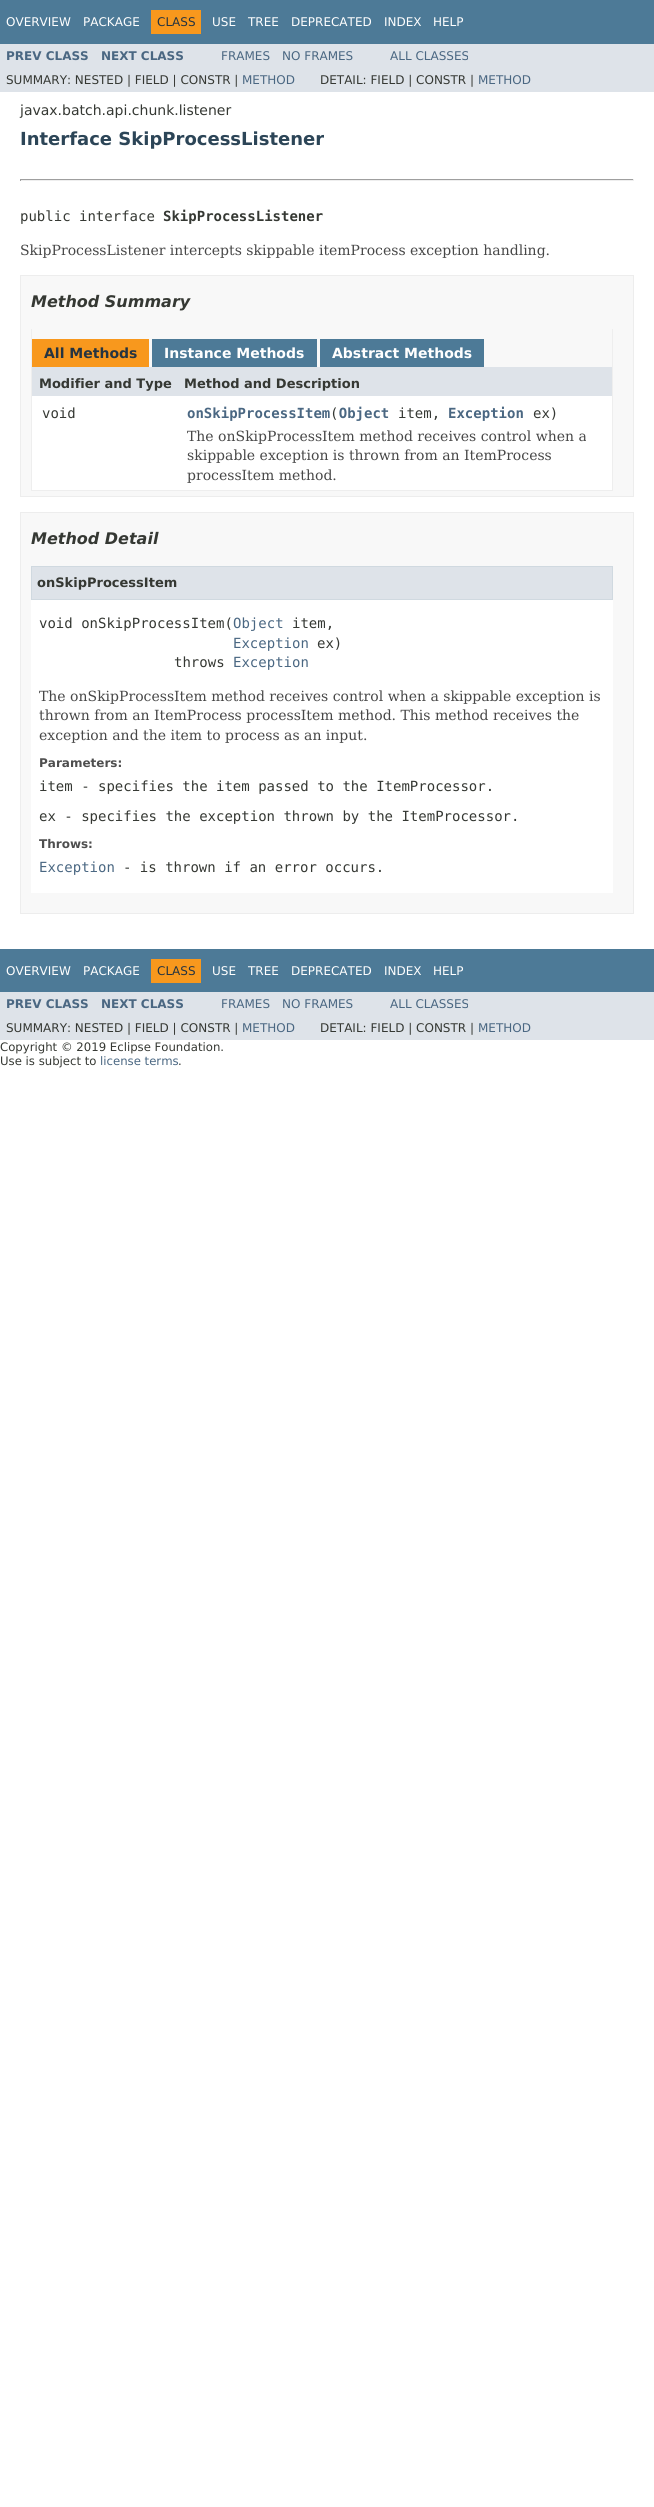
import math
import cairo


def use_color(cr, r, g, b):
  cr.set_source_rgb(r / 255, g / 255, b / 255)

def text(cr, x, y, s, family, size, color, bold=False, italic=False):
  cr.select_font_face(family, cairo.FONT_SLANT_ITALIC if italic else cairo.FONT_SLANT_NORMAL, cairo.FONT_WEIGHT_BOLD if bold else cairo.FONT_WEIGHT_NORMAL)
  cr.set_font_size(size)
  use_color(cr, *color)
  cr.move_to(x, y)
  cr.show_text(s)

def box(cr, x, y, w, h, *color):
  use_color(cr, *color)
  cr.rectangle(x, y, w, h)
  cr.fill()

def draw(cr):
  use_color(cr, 255, 255, 255)
  cr.paint()
  box(cr, 0, 0, 654, 44, 77, 122, 151)
  box(cr, 151, 10, 50, 24, 248, 152, 29)
  box(cr, 0, 44, 654, 48, 222, 227, 233)
  box(cr, 20, 179, 614, 1, 159, 159, 159)
  box(cr, 633, 179, 1, 2, 238, 238, 238)
  box(cr, 20, 180, 614, 1, 238, 238, 238)
  box(cr, 20, 179, 1, 2, 159, 159, 159)
  use_color(cr, 248, 248, 248)
  cr.rectangle(20.5, 275.5, 613, 221)
  cr.fill_preserve()
  use_color(cr, 237, 237, 237)
  cr.set_line_width(1)
  cr.stroke()
  box(cr, 612, 329, 1, 162, 238, 238, 238)
  box(cr, 31, 490, 582, 1, 238, 238, 238)
  box(cr, 31, 329, 1, 162, 238, 238, 238)
  box(cr, 32, 339, 117, 28, 248, 152, 29)
  box(cr, 152, 339, 165, 28, 77, 122, 151)
  box(cr, 320, 339, 164, 28, 77, 122, 151)
  box(cr, 32, 367, 580, 29, 222, 227, 233)
  box(cr, 32, 396, 580, 94, 255, 255, 255)
  use_color(cr, 248, 248, 248)
  cr.rectangle(20.5, 512.5, 613, 401)
  cr.fill_preserve()
  use_color(cr, 237, 237, 237)
  cr.stroke()
  box(cr, 31, 600, 582, 293, 255, 255, 255)
  use_color(cr, 222, 227, 233)
  cr.rectangle(31.5, 566.5, 581, 33)
  cr.fill_preserve()
  use_color(cr, 208, 217, 224)
  cr.stroke()
  box(cr, 0, 949, 654, 43, 77, 122, 151)
  box(cr, 151, 959, 50, 24, 248, 152, 29)
  box(cr, 0, 992, 654, 48, 222, 227, 233)
  text(cr, 6, 26, "OVERVIEW", "DejaVu Sans", 12, (255, 255, 255))
  text(cr, 83, 26, "PACKAGE", "DejaVu Sans", 12, (255, 255, 255))
  text(cr, 157, 26, "CLASS", "DejaVu Sans", 12, (37, 52, 65))
  text(cr, 212, 26, "USE", "DejaVu Sans", 12, (255, 255, 255))
  text(cr, 248, 26, "TREE", "DejaVu Sans", 12, (255, 255, 255))
  text(cr, 291, 26, "DEPRECATED", "DejaVu Sans", 12, (255, 255, 255))
  text(cr, 384, 26, "INDEX", "DejaVu Sans", 12, (255, 255, 255))
  text(cr, 433, 26, "HELP", "DejaVu Sans", 12, (255, 255, 255))
  text(cr, 6, 60, "PREV CLASS", "DejaVu Sans", 12, (74, 103, 130), bold=True)
  text(cr, 101, 60, "NEXT CLASS", "DejaVu Sans", 12, (74, 103, 130), bold=True)
  text(cr, 221, 60, "FRAMES", "DejaVu Sans", 12, (74, 103, 130))
  text(cr, 282, 60, "NO FRAMES", "DejaVu Sans", 12, (74, 103, 130))
  text(cr, 390, 60, "ALL CLASSES", "DejaVu Sans", 12, (74, 103, 130))
  text(cr, 6, 84, "SUMMARY: NESTED | FIELD | CONSTR |", "DejaVu Sans", 12, (53, 56, 51))
  text(cr, 242, 84, "METHOD", "DejaVu Sans", 12, (74, 103, 130))
  text(cr, 320, 84, "DETAIL: FIELD | CONSTR |", "DejaVu Sans", 12, (53, 56, 51))
  text(cr, 478, 84, "METHOD", "DejaVu Sans", 12, (74, 103, 130))
  text(cr, 20, 115, "javax.batch.api.chunk.listener", "DejaVu Sans", 14, (53, 56, 51))
  text(cr, 20, 145, "Interface SkipProcessListener", "DejaVu Sans", 18, (44, 69, 87), bold=True)
  text(cr, 20, 221, "public interface", "DejaVu Sans Mono", 14, (53, 56, 51))
  text(cr, 163, 221, "SkipProcessListener", "DejaVu Sans Mono", 14, (53, 56, 51), bold=True)
  text(cr, 20, 255, "SkipProcessListener intercepts skippable itemProcess exception handling.", "DejaVu Serif", 14, (71, 71, 71))
  text(cr, 31, 307, "Method Summary", "DejaVu Sans", 16, (53, 56, 51), bold=True, italic=True)
  text(cr, 44, 358, "All Methods", "DejaVu Sans", 14, (37, 52, 65), bold=True)
  text(cr, 164, 358, "Instance Methods", "DejaVu Sans", 14, (255, 255, 255), bold=True)
  text(cr, 332, 358, "Abstract Methods", "DejaVu Sans", 14, (255, 255, 255), bold=True)
  text(cr, 39, 388, "Modifier and Type", "DejaVu Sans", 13, (53, 56, 51), bold=True)
  text(cr, 184, 388, "Method and Description", "DejaVu Sans", 13, (53, 56, 51), bold=True)
  text(cr, 42, 418, "void", "DejaVu Sans Mono", 14, (53, 56, 51))
  text(cr, 187, 418, "onSkipProcessItem Object", "DejaVu Sans Mono", 14, (74, 103, 130), bold=True)
  text(cr, 448, 418, "Exception", "DejaVu Sans Mono", 14, (74, 103, 130), bold=True)
  text(cr, 330, 418, "(", "DejaVu Sans Mono", 14, (53, 56, 51))
  text(cr, 398, 418, "item,", "DejaVu Sans Mono", 14, (53, 56, 51))
  text(cr, 533, 418, "ex)", "DejaVu Sans Mono", 14, (53, 56, 51))
  text(cr, 187, 441, "The onSkipProcessItem method receives control when a", "DejaVu Serif", 14, (71, 71, 71))
  text(cr, 187, 460, "skippable exception is thrown from an ItemProcess", "DejaVu Serif", 14, (71, 71, 71))
  text(cr, 187, 480, "processItem method.", "DejaVu Serif", 14, (71, 71, 71))
  text(cr, 31, 544, "Method Detail", "DejaVu Sans", 16, (53, 56, 51), bold=True, italic=True)
  text(cr, 37, 587, "onSkipProcessItem", "DejaVu Sans", 13, (53, 56, 51), bold=True)
  text(cr, 39, 628, "void onSkipProcessItem(", "DejaVu Sans Mono", 14, (53, 56, 51))
  text(cr, 233, 628, "Object", "DejaVu Sans Mono", 14, (74, 103, 130))
  text(cr, 292, 628, "item,", "DejaVu Sans Mono", 14, (53, 56, 51))
  text(cr, 233, 648, "Exception", "DejaVu Sans Mono", 14, (74, 103, 130))
  text(cr, 317, 648, "ex)", "DejaVu Sans Mono", 14, (53, 56, 51))
  text(cr, 174, 667, "throws", "DejaVu Sans Mono", 14, (53, 56, 51))
  text(cr, 233, 667, "Exception", "DejaVu Sans Mono", 14, (74, 103, 130))
  text(cr, 39, 701, "The onSkipProcessItem method receives control when a skippable exception is", "DejaVu Serif", 14, (71, 71, 71))
  text(cr, 39, 720, "thrown from an ItemProcess processItem method. This method receives the", "DejaVu Serif", 14, (71, 71, 71))
  text(cr, 39, 740, "exception and the item to process as an input.", "DejaVu Serif", 14, (71, 71, 71))
  text(cr, 39, 767, "Parameters:", "DejaVu Sans", 12, (78, 78, 78), bold=True)
  text(cr, 39, 791, "item - specifies the item passed to the ItemProcessor.", "DejaVu Sans Mono", 14, (53, 56, 51))
  text(cr, 39, 821, "ex - specifies the exception thrown by the ItemProcessor.", "DejaVu Sans Mono", 14, (53, 56, 51))
  text(cr, 39, 848, "Throws:", "DejaVu Sans", 12, (78, 78, 78), bold=True)
  text(cr, 39, 872, "Exception", "DejaVu Sans Mono", 14, (74, 103, 130))
  text(cr, 123, 872, "- is thrown if an error occurs.", "DejaVu Sans Mono", 14, (53, 56, 51))
  text(cr, 6, 975, "OVERVIEW", "DejaVu Sans", 12, (255, 255, 255))
  text(cr, 83, 975, "PACKAGE", "DejaVu Sans", 12, (255, 255, 255))
  text(cr, 157, 975, "CLASS", "DejaVu Sans", 12, (37, 52, 65))
  text(cr, 212, 975, "USE", "DejaVu Sans", 12, (255, 255, 255))
  text(cr, 248, 975, "TREE", "DejaVu Sans", 12, (255, 255, 255))
  text(cr, 291, 975, "DEPRECATED", "DejaVu Sans", 12, (255, 255, 255))
  text(cr, 384, 975, "INDEX", "DejaVu Sans", 12, (255, 255, 255))
  text(cr, 433, 975, "HELP", "DejaVu Sans", 12, (255, 255, 255))
  text(cr, 6, 1008, "PREV CLASS", "DejaVu Sans", 12, (74, 103, 130), bold=True)
  text(cr, 101, 1008, "NEXT CLASS", "DejaVu Sans", 12, (74, 103, 130), bold=True)
  text(cr, 221, 1008, "FRAMES", "DejaVu Sans", 12, (74, 103, 130))
  text(cr, 282, 1008, "NO FRAMES", "DejaVu Sans", 12, (74, 103, 130))
  text(cr, 390, 1008, "ALL CLASSES", "DejaVu Sans", 12, (74, 103, 130))
  text(cr, 6, 1032, "SUMMARY: NESTED | FIELD | CONSTR |", "DejaVu Sans", 12, (53, 56, 51))
  text(cr, 242, 1032, "METHOD", "DejaVu Sans", 12, (74, 103, 130))
  text(cr, 320, 1032, "DETAIL: FIELD | CONSTR |", "DejaVu Sans", 12, (53, 56, 51))
  text(cr, 478, 1032, "METHOD", "DejaVu Sans", 12, (74, 103, 130))
  text(cr, 0, 1051, "Copyright © 2019 Eclipse Foundation.", "DejaVu Sans", 11.7, (53, 56, 51))
  text(cr, 0, 1065, "Use is subject to", "DejaVu Sans", 11.7, (53, 56, 51))
  text(cr, 100, 1065, "license terms", "DejaVu Sans", 11.7, (74, 103, 130))
  text(cr, 178, 1065, ".", "DejaVu Sans", 11.7, (53, 56, 51))


surface = cairo.ImageSurface(cairo.FORMAT_RGB24, 654, 2507)
cr = cairo.Context(surface)
options = cairo.FontOptions()
options.set_hint_metrics(cairo.HINT_METRICS_OFF)
options.set_hint_style(cairo.HINT_STYLE_NONE)
cr.set_font_options(options)
cr.set_miter_limit(4)
draw(cr)
surface.write_to_png("out.png")
